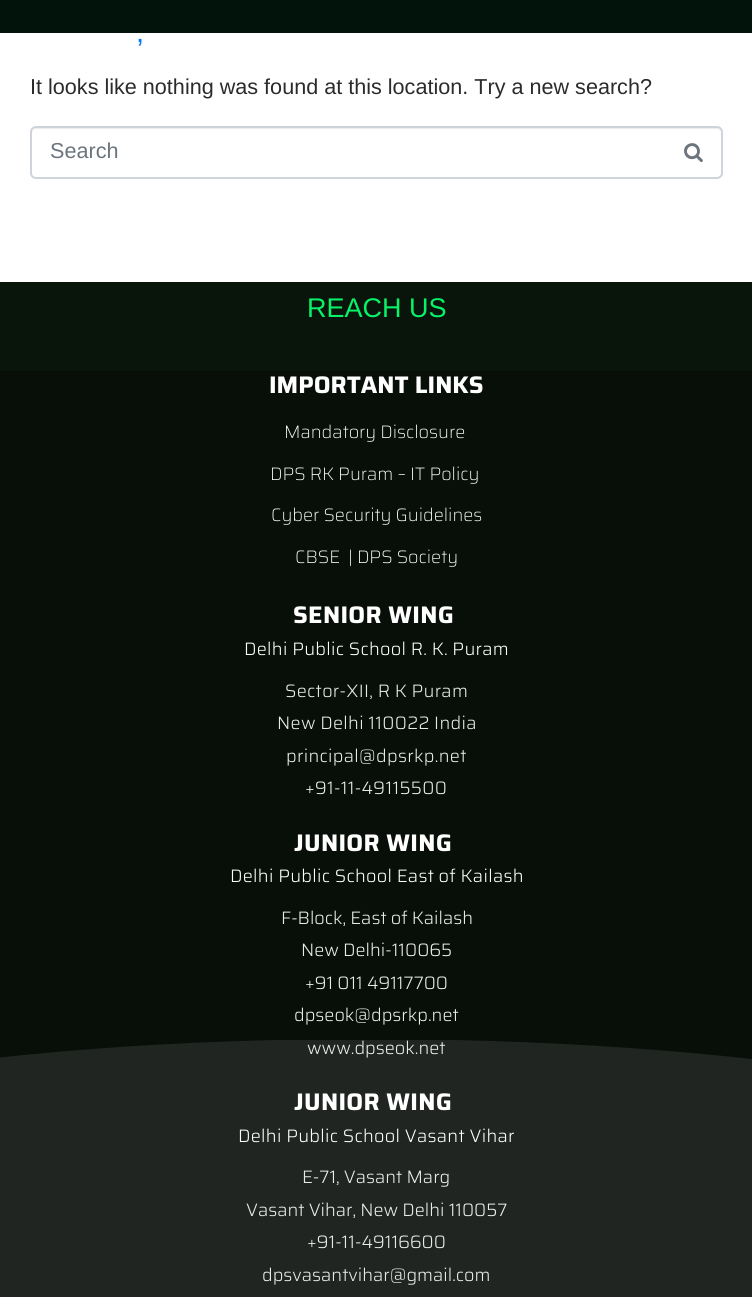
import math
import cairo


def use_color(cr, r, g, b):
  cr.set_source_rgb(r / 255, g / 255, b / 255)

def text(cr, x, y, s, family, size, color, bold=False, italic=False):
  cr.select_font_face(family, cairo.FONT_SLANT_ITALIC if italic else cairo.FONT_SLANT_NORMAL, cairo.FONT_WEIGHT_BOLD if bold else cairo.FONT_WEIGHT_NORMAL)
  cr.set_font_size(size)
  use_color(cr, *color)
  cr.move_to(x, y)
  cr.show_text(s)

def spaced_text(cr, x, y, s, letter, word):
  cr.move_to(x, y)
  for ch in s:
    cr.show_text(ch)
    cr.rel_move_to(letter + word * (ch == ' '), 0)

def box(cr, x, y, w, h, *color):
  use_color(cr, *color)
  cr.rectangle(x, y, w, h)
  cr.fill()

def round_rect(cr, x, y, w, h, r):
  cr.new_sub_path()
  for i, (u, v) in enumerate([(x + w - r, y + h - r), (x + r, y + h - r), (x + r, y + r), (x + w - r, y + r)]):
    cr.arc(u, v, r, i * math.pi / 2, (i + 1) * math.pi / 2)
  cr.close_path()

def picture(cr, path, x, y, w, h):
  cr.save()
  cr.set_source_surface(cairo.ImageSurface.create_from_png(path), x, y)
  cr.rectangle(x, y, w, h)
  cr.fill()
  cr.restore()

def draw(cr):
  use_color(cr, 255, 255, 255)
  cr.paint()
  box(cr, 0, 0, 752, 33, 1, 19, 11)
  use_color(cr, 236, 236, 236)
  cr.new_path()
  cr.move_to(36, 129)
  cr.line_to(717, 129)
  cr.curve_to(719, 129, 722, 131, 722, 134)
  cr.line_to(722, 133)
  cr.curve_to(722, 130, 720, 128, 717, 128)
  cr.line_to(37, 128)
  cr.curve_to(34, 128, 32, 130, 32, 133)
  cr.line_to(32, 134)
  cr.curve_to(32, 131, 34, 129, 36, 129)
  cr.close_path()
  cr.fill()
  round_rect(cr, 31, 127, 691, 51, 5)
  use_color(cr, 206, 212, 218)
  cr.stroke()
  picture(cr, "img_01.png", 684, 143, 19, 20)
  box(cr, 0, 282, 752, 89, 9, 21, 11)
  box(cr, 0, 371, 752, 688, 7, 15, 8)
  cr.save()
  cr.rectangle(0, 1040, 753, 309)
  cr.clip()
  use_color(cr, 32, 37, 34)
  cr.new_path()
  cr.move_to(-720, 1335)
  cr.line_to(-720, 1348)
  cr.line_to(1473, 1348)
  cr.line_to(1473, 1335)
  cr.curve_to(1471, 1277, 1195, 1042, 377, 1039)
  cr.curve_to(-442, 1037, -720, 1278, -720, 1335)
  cr.close_path()
  cr.fill()
  cr.restore()
  text(cr, 136, 42, ",", "Liberation Sans", 29, (0, 119, 255))
  text(cr, 30, 94, "It looks like nothing was found at this location. Try a new search?", "Liberation Sans", 21.6, (43, 43, 43))
  text(cr, 50, 158, "Search", "Liberation Sans", 21.6, (108, 117, 125))
  text(cr, 307, 317, "REACH US", "Liberation Sans", 27, (8, 242, 105))
  text(cr, 269, 393, "IMPORTANT LINKS", "Saira", 24, (255, 255, 255), bold=True)
  text(cr, 284, 438, "Mandatory Disclosure", "Saira ExtraLight", 18, (255, 255, 255))
  text(cr, 270, 480, "DPS RK Puram – IT Policy", "Saira ExtraLight", 18, (255, 255, 255))
  text(cr, 271, 521, "Cyber Security Guidelines", "Saira ExtraLight", 18, (255, 255, 255))
  text(cr, 295, 563, "CBSE", "Saira ExtraLight", 18, (255, 255, 255))
  text(cr, 348, 563, "| DPS Society", "Saira ExtraLight", 18, (255, 255, 255))
  cr.select_font_face("Saira", cairo.FONT_SLANT_NORMAL, cairo.FONT_WEIGHT_BOLD)
  cr.set_font_size(24)
  spaced_text(cr, 293, 623, "SENIOR WING", 0.3, 0)
  cr.select_font_face("Saira Light")
  cr.set_font_size(18)
  spaced_text(cr, 244, 655, "Delhi Public School R. K. Puram", 0.3, 0)
  use_color(cr, 234, 234, 234)
  spaced_text(cr, 285, 697, "Sector-XII, R K Puram", 0.3, 0)
  spaced_text(cr, 277, 729, "New Delhi 110022 India", 0.3, 0)
  spaced_text(cr, 286, 762, "principal@dpsrkp.net", 0.3, 0)
  spaced_text(cr, 305, 794, "+91-11-49115500", 0.3, 0)
  cr.select_font_face("Saira", cairo.FONT_SLANT_NORMAL, cairo.FONT_WEIGHT_BOLD)
  cr.set_font_size(24)
  use_color(cr, 255, 255, 255)
  spaced_text(cr, 294, 851, "JUNIOR WING", 0.3, 0)
  cr.select_font_face("Saira Light")
  cr.set_font_size(18)
  spaced_text(cr, 230, 882, "Delhi Public School East of Kailash", 0.3, 0)
  text(cr, 281, 924, "F-Block, East of Kailash", "Saira Light", 18, (234, 234, 234))
  text(cr, 301, 956, "New Delhi-110065", "Saira Light", 18, (234, 234, 234))
  text(cr, 305, 989, "+91 011 49117700", "Saira Light", 18, (234, 234, 234))
  text(cr, 294, 1021, "dpseok@dpsrkp.net", "Saira Light", 18, (234, 234, 234))
  text(cr, 307, 1054, "www.dpseok.net", "Saira Light", 18, (234, 234, 234))
  cr.select_font_face("Saira", cairo.FONT_SLANT_NORMAL, cairo.FONT_WEIGHT_BOLD)
  cr.set_font_size(24)
  use_color(cr, 255, 255, 255)
  spaced_text(cr, 294, 1110, "JUNIOR WING", 0.3, 0)
  cr.select_font_face("Saira Light")
  cr.set_font_size(18)
  spaced_text(cr, 238, 1142, "Delhi Public School Vasant Vihar", 0.3, 0)
  text(cr, 302, 1183, "E-71, Vasant Marg", "Saira Light", 18, (234, 234, 234))
  text(cr, 246, 1216, "Vasant Vihar, New Delhi 110057", "Saira Light", 18, (234, 234, 234))
  text(cr, 307, 1248, "+91-11-49116600", "Saira Light", 18, (234, 234, 234))
  text(cr, 262, 1281, "dpsvasantvihar@gmail.com", "Saira Light", 18, (234, 234, 234))


surface = cairo.ImageSurface(cairo.FORMAT_RGB24, 752, 1297)
cr = cairo.Context(surface)
options = cairo.FontOptions()
options.set_hint_metrics(cairo.HINT_METRICS_OFF)
options.set_hint_style(cairo.HINT_STYLE_NONE)
cr.set_font_options(options)
cr.set_miter_limit(4)
draw(cr)
surface.write_to_png("out.png")
